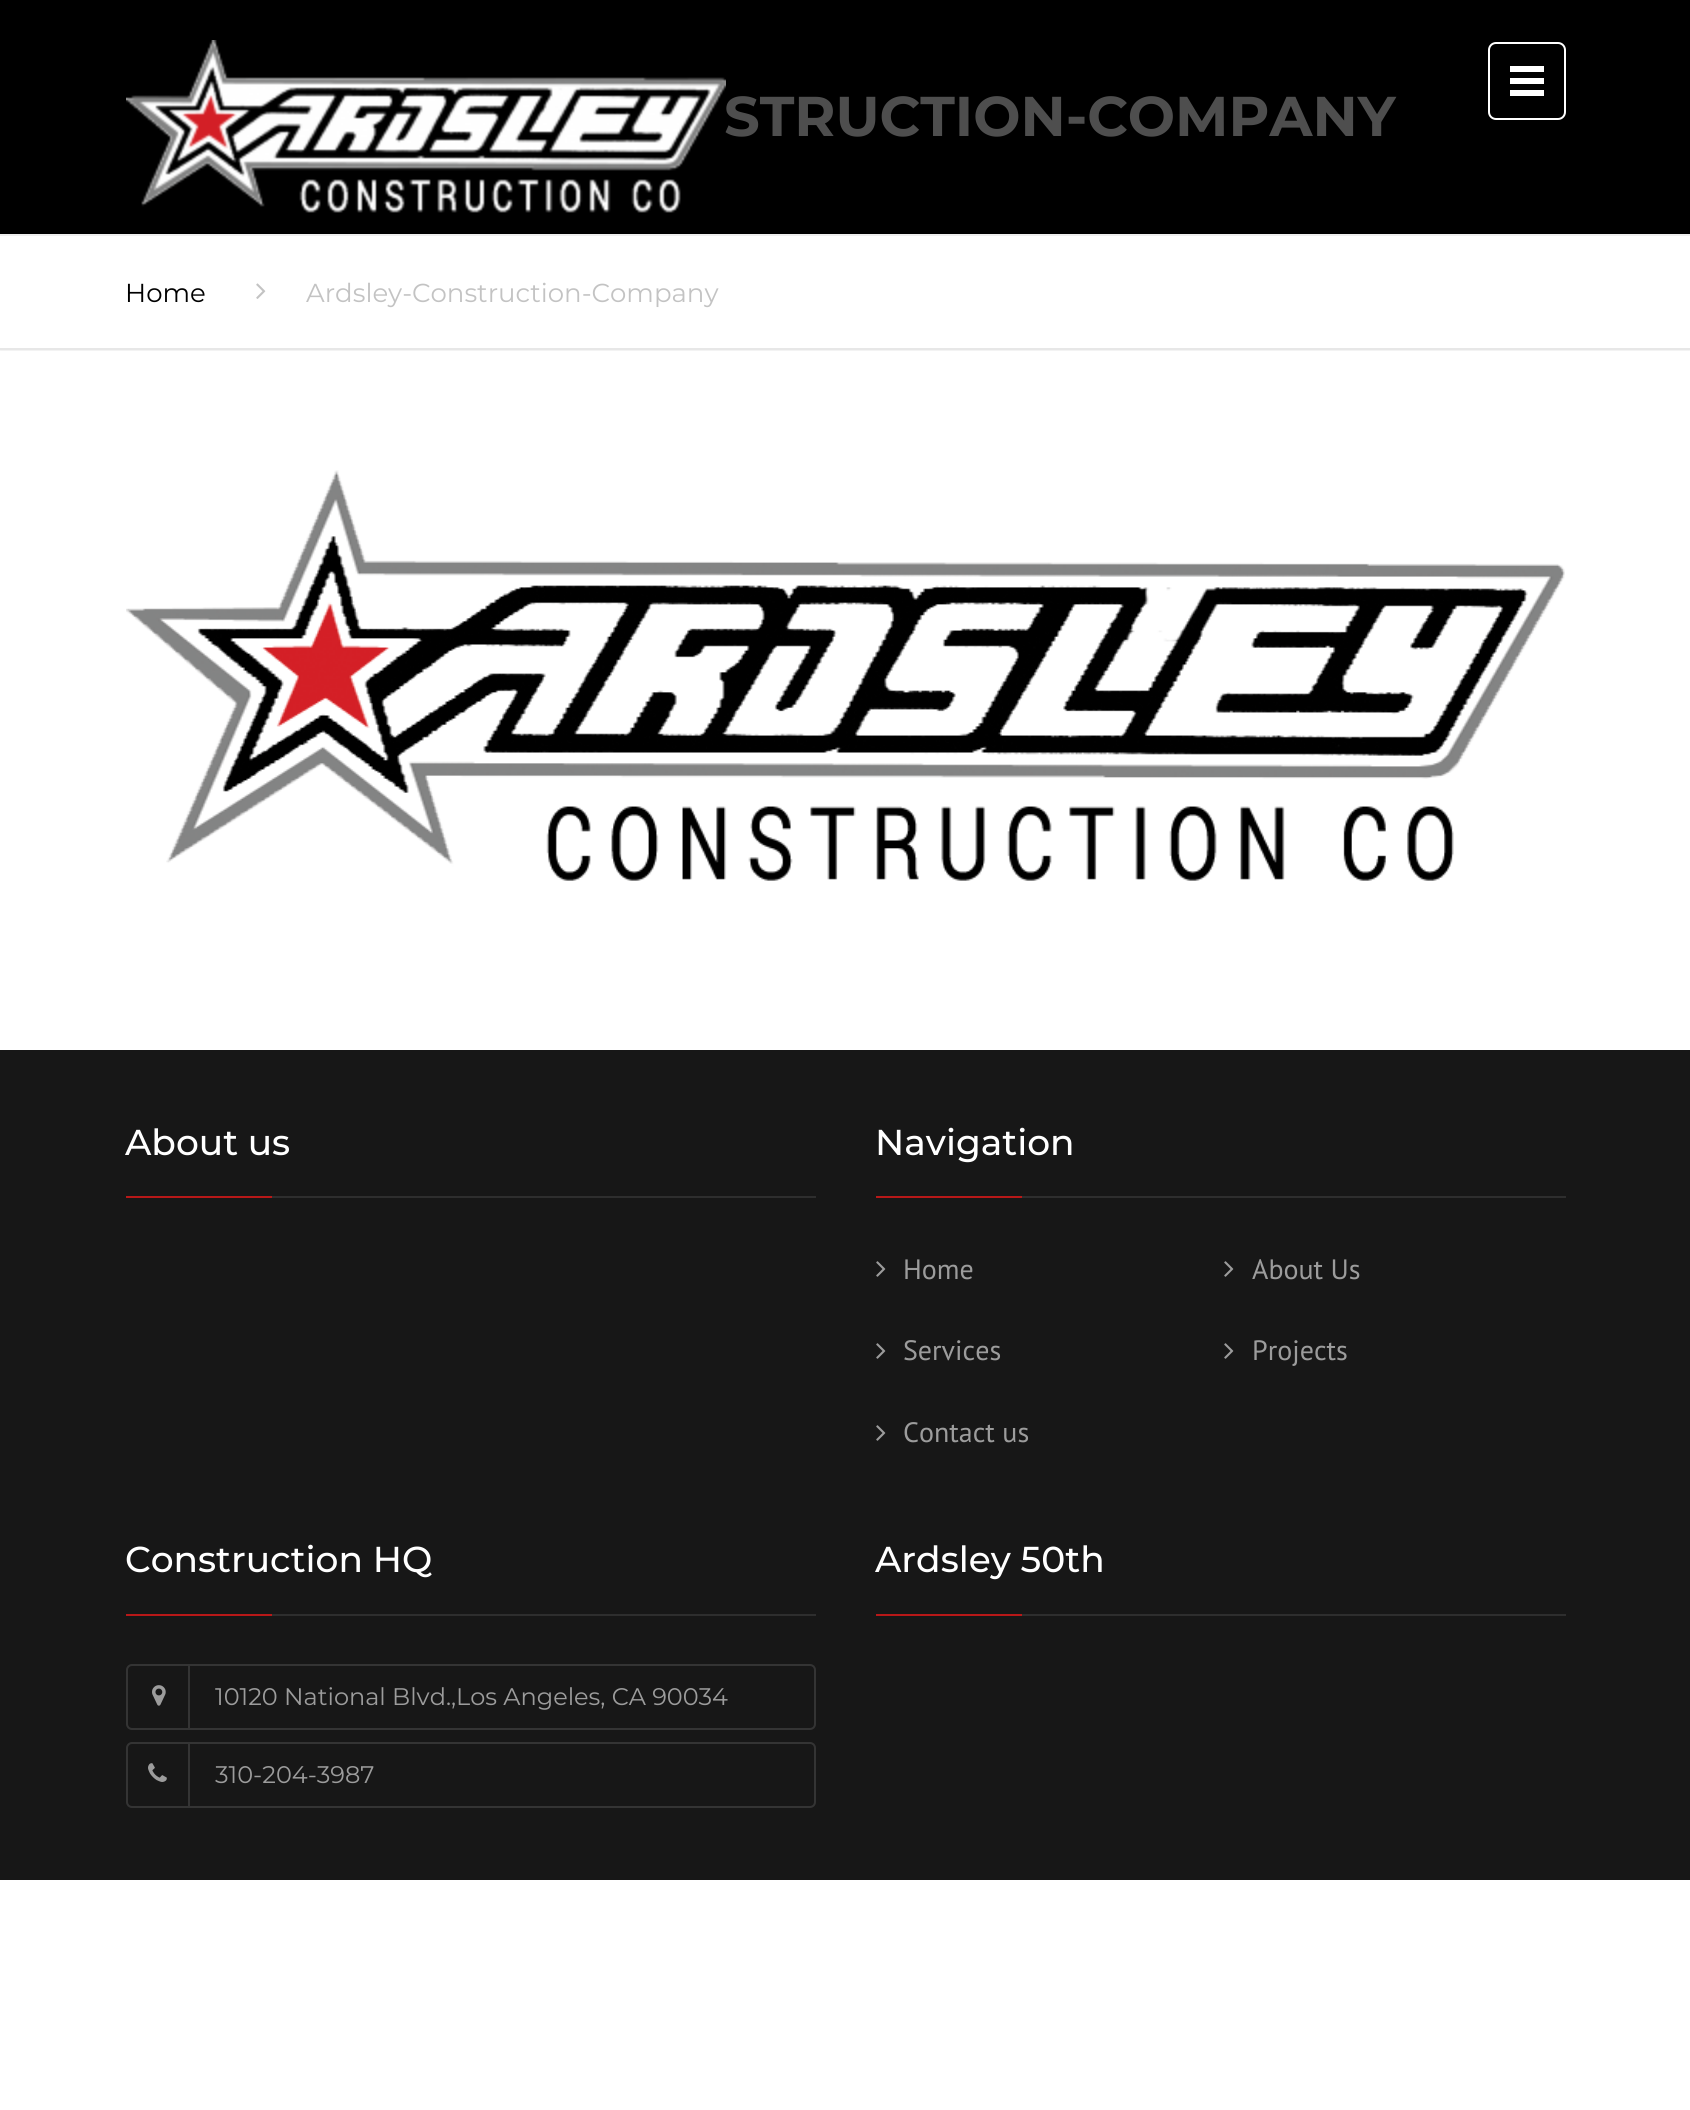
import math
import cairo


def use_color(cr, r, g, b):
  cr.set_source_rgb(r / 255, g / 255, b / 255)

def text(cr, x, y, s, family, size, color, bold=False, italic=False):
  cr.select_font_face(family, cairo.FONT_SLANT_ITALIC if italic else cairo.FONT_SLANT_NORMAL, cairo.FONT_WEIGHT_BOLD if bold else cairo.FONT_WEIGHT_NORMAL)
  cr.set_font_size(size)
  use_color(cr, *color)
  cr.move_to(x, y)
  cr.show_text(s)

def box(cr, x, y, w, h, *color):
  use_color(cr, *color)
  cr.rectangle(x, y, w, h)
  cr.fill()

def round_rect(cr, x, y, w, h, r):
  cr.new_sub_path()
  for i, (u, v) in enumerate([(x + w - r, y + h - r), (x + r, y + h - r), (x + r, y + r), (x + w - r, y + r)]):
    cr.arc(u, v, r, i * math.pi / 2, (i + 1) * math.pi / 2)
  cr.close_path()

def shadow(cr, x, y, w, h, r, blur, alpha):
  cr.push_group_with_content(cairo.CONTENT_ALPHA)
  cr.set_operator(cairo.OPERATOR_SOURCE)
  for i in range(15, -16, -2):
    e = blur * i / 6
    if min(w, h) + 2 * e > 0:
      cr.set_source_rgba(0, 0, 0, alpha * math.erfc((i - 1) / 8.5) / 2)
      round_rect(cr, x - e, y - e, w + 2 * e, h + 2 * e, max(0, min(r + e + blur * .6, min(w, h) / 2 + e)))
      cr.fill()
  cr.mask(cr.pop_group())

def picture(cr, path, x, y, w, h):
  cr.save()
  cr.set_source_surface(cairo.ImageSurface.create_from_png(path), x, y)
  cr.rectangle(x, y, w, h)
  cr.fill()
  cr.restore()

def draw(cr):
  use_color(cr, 255, 255, 255)
  cr.paint()
  cr.save()
  cr.rectangle(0, 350, 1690, 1)
  cr.clip()
  use_color(cr, 0, 0, 0)
  shadow(cr, 0, 236, 1690, 114, 0, 1, 0.14)
  cr.restore()
  box(cr, 0, 0, 1690, 234, 0, 0, 0)
  round_rect(cr, 1489, 43, 76, 76, 7)
  use_color(cr, 255, 255, 255)
  cr.stroke()
  box(cr, 1510, 66, 34, 6, 255, 255, 255)
  box(cr, 1510, 78, 34, 6, 255, 255, 255)
  box(cr, 1510, 90, 34, 6, 255, 255, 255)
  box(cr, 0, 234, 1690, 2, 238, 238, 238)
  box(cr, 0, 348, 1690, 2, 231, 231, 231)
  picture(cr, "img_02.png", 256, 283, 10, 16)
  picture(cr, "img_03.png", 126, 470, 1439, 411)
  box(cr, 0, 1050, 1690, 830, 23, 23, 23)
  box(cr, 272, 1196, 544, 2, 46, 46, 46)
  box(cr, 126, 1196, 146, 2, 184, 24, 24)
  box(cr, 1022, 1196, 544, 2, 46, 46, 46)
  box(cr, 876, 1196, 146, 2, 184, 24, 24)
  picture(cr, "img_04.png", 876, 1261, 10, 16)
  picture(cr, "img_04.png", 1224, 1261, 10, 16)
  picture(cr, "img_04.png", 876, 1343, 10, 16)
  picture(cr, "img_04.png", 1224, 1343, 10, 16)
  picture(cr, "img_04.png", 876, 1425, 10, 16)
  box(cr, 272, 1614, 544, 2, 46, 46, 46)
  box(cr, 126, 1614, 146, 2, 184, 24, 24)
  round_rect(cr, 127, 1665, 688, 64, 5)
  use_color(cr, 52, 52, 52)
  cr.stroke()
  picture(cr, "img_05.png", 152, 1685, 14, 21)
  box(cr, 188, 1666, 2, 62, 52, 52, 52)
  round_rect(cr, 127, 1743, 688, 64, 5)
  cr.stroke()
  picture(cr, "img_06.png", 148, 1763, 19, 19)
  box(cr, 188, 1744, 2, 62, 52, 52, 52)
  box(cr, 1022, 1614, 544, 2, 46, 46, 46)
  box(cr, 876, 1614, 146, 2, 184, 24, 24)
  text(cr, 724, 136, "STRUCTION-COMPANY", "Montserrat", 56, (78, 78, 78), bold=True)
  picture(cr, "img_01.png", 126, 40, 600, 173)
  text(cr, 125, 302, "Home", "Montserrat", 26, (0, 0, 0))
  text(cr, 306, 302, "Ardsley-Construction-Company", "Montserrat", 26, (195, 195, 195))
  text(cr, 125, 1155, "About us", "Montserrat Medium", 36, (255, 255, 255))
  text(cr, 875, 1155, "Navigation", "Montserrat Medium", 36, (255, 255, 255))
  text(cr, 903, 1279, "Home", "PT Sans", 28, (156, 156, 156))
  text(cr, 1252, 1279, "About Us", "PT Sans", 28, (156, 156, 156))
  text(cr, 903, 1360, "Services", "PT Sans", 28, (156, 156, 156))
  text(cr, 1252, 1360, "Projects", "PT Sans", 28, (156, 156, 156))
  text(cr, 903, 1442, "Contact us", "PT Sans", 28, (156, 156, 156))
  text(cr, 125, 1572, "Construction HQ", "Montserrat Medium", 36, (255, 255, 255))
  text(cr, 215, 1705, "10120 National Blvd.,Los Angeles, CA 90034", "Montserrat", 24, (156, 156, 156))
  text(cr, 215, 1783, "310-204-3987", "Montserrat", 24, (156, 156, 156))
  text(cr, 875, 1572, "Ardsley 50th", "Montserrat Medium", 36, (255, 255, 255))


surface = cairo.ImageSurface(cairo.FORMAT_RGB24, 1690, 2110)
cr = cairo.Context(surface)
options = cairo.FontOptions()
options.set_hint_metrics(cairo.HINT_METRICS_OFF)
options.set_hint_style(cairo.HINT_STYLE_NONE)
cr.set_font_options(options)
cr.set_miter_limit(4)
draw(cr)
surface.write_to_png("out.png")
